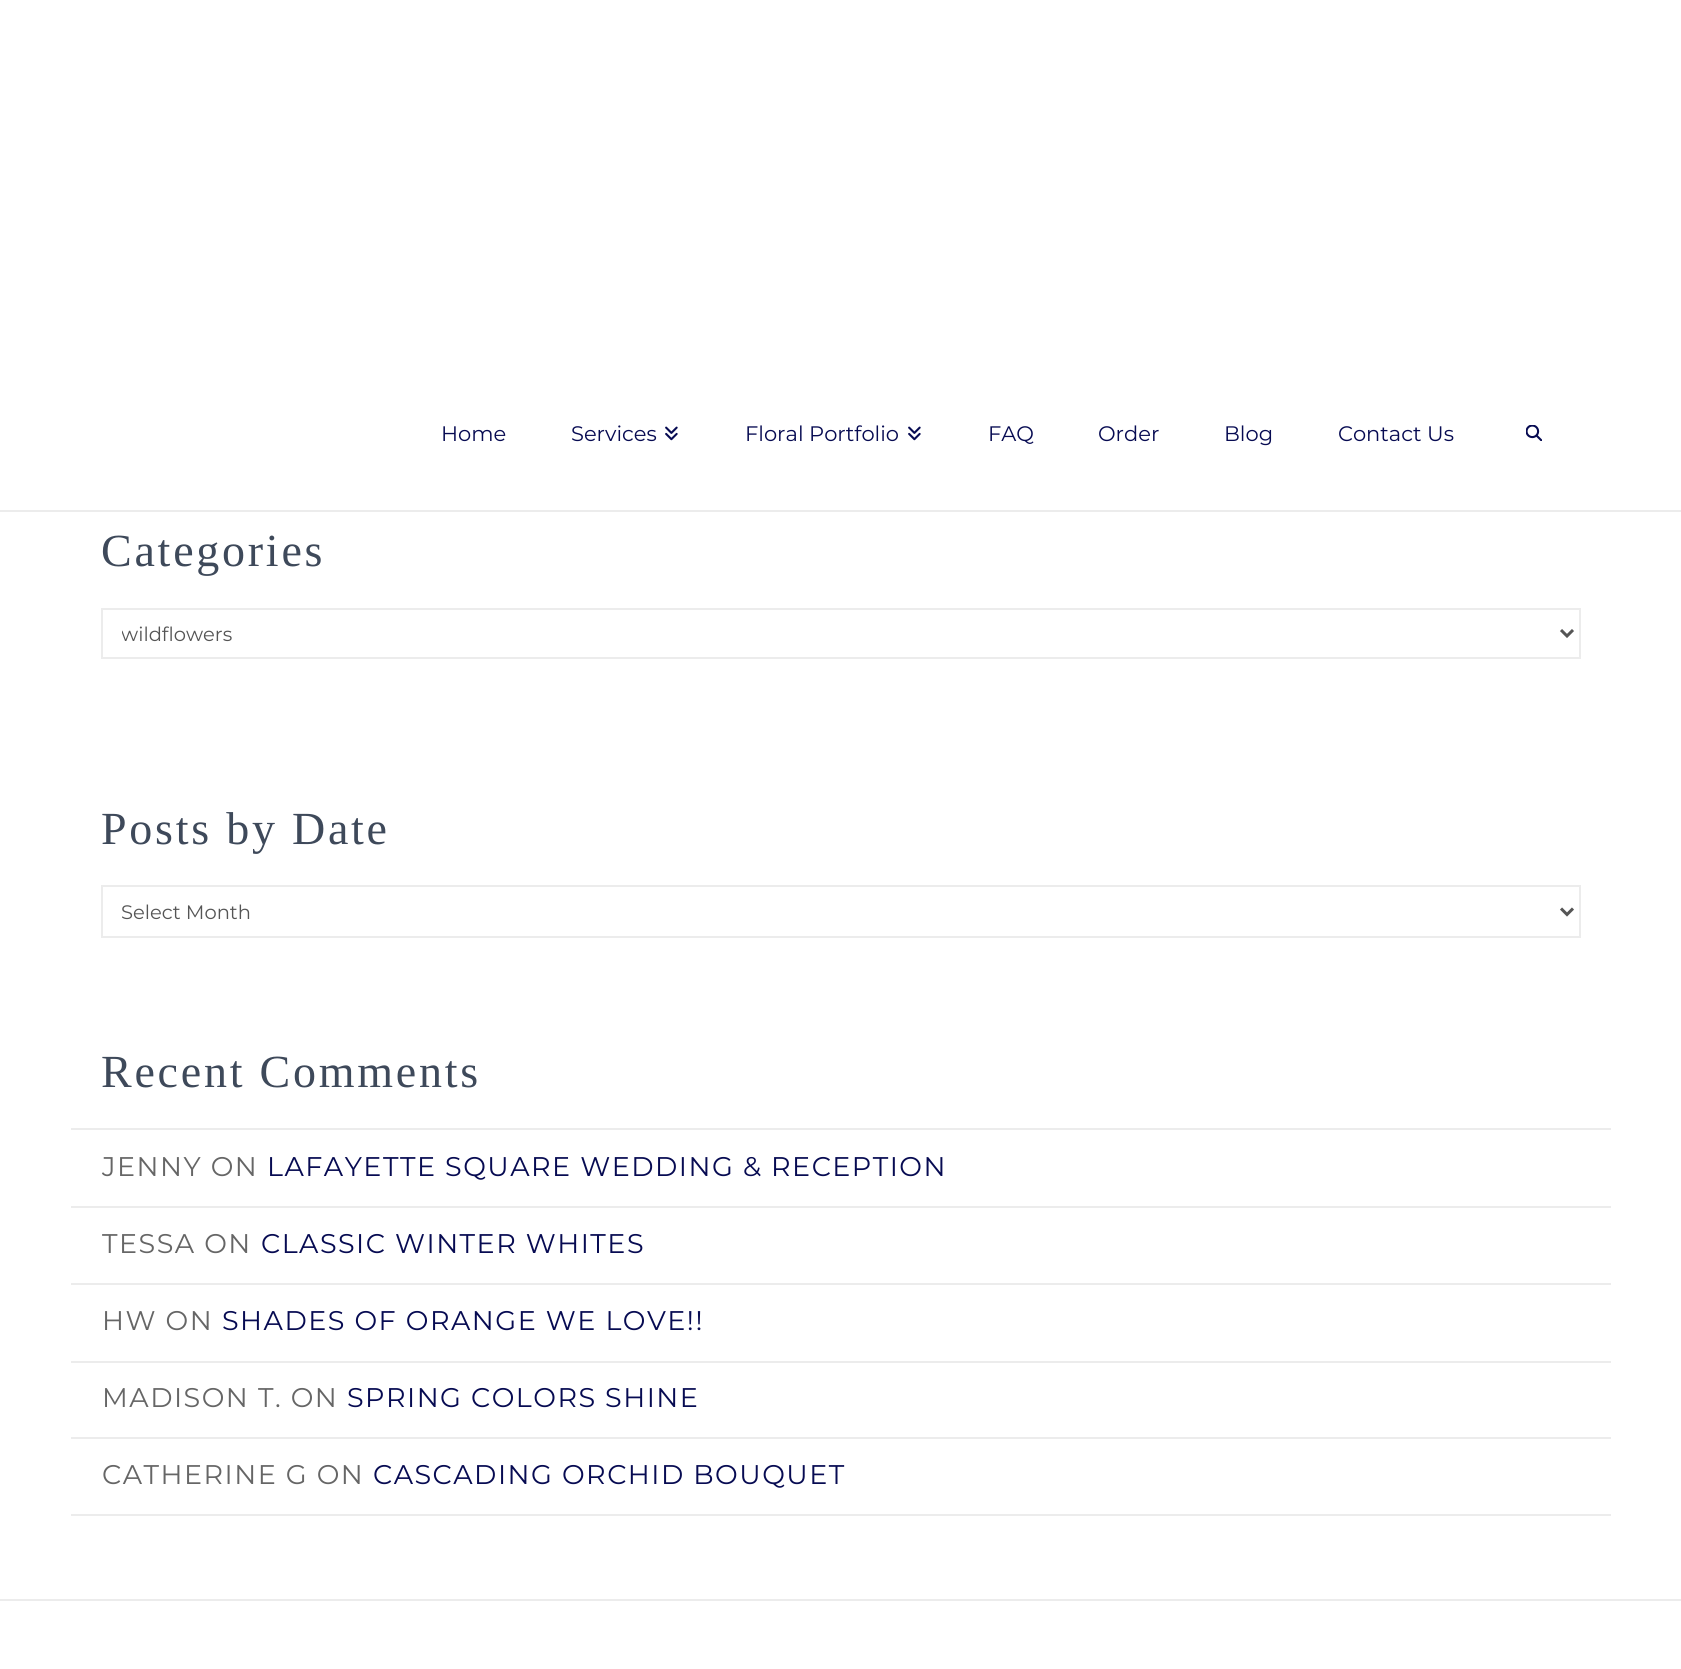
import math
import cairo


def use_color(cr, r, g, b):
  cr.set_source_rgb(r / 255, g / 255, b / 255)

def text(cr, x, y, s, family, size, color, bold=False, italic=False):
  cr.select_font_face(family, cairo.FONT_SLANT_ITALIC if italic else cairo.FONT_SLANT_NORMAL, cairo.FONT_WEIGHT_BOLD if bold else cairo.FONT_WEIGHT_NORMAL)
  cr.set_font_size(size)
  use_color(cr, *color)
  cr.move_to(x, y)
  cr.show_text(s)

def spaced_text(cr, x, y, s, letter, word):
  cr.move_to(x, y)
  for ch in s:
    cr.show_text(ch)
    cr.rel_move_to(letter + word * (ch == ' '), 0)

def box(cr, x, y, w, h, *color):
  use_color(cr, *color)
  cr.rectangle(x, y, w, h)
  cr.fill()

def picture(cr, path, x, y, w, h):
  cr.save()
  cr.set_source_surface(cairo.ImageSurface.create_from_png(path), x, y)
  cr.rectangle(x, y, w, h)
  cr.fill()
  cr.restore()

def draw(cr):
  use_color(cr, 255, 255, 255)
  cr.paint()
  box(cr, 0, 510, 1681, 2, 236, 236, 236)
  picture(cr, "img_01.png", 665, 426, 13, 15)
  picture(cr, "img_01.png", 908, 426, 13, 15)
  picture(cr, "img_02.png", 1526, 425, 16, 16)
  cr.rectangle(102, 609, 1478, 49)
  cr.stroke()
  cr.new_path()
  cr.move_to(1561, 630)
  cr.line_to(1567, 636)
  cr.line_to(1573, 630)
  use_color(cr, 85, 85, 85)
  cr.set_line_width(3)
  cr.stroke()
  cr.rectangle(102, 886, 1478, 51)
  use_color(cr, 236, 236, 236)
  cr.set_line_width(2)
  cr.stroke()
  cr.new_path()
  cr.move_to(1561, 908.5)
  cr.line_to(1567, 914.5)
  cr.line_to(1573, 908.5)
  use_color(cr, 85, 85, 85)
  cr.set_line_width(3)
  cr.stroke()
  box(cr, 71, 1128, 1540, 2, 236, 236, 236)
  box(cr, 71, 1206, 1540, 2, 236, 236, 236)
  box(cr, 71, 1283, 1540, 2, 236, 236, 236)
  box(cr, 71, 1361, 1540, 2, 236, 236, 236)
  box(cr, 71, 1437, 1540, 2, 236, 236, 236)
  box(cr, 71, 1514, 1540, 2, 236, 236, 236)
  box(cr, 0, 1599, 1681, 2, 236, 236, 236)
  text(cr, 441, 441, "Home", "Montserrat", 21, (7, 11, 82))
  text(cr, 571, 441, "Services", "Montserrat", 21, (7, 11, 82))
  text(cr, 745, 441, "Floral Portfolio", "Montserrat", 21, (7, 11, 82))
  text(cr, 988, 441, "FAQ", "Montserrat", 21, (7, 11, 82))
  text(cr, 1098, 441, "Order", "Montserrat", 21, (7, 11, 82))
  text(cr, 1224, 441, "Blog", "Montserrat", 21, (7, 11, 82))
  text(cr, 1338, 441, "Contact Us", "Montserrat", 21, (7, 11, 82))
  cr.select_font_face("Liberation Serif")
  cr.set_font_size(46)
  use_color(cr, 62, 73, 90)
  spaced_text(cr, 101, 566, "Categories", 2.75, 0)
  cr.save()
  cr.rectangle(122, 620, 1420, 27)
  cr.clip()
  text(cr, 121, 641, "wildflowers", "Montserrat", 19.5, (85, 85, 85))
  cr.restore()
  spaced_text(cr, 101, 844, "Posts by Date", 2.75, 0)
  text(cr, 121, 919, "Select Month", "Montserrat", 19.5, (85, 85, 85))
  cr.select_font_face("Liberation Serif")
  cr.set_font_size(46)
  use_color(cr, 62, 73, 90)
  spaced_text(cr, 101, 1087, "Recent Comments", 2.75, 0)
  cr.select_font_face("Montserrat")
  cr.set_font_size(27)
  use_color(cr, 102, 102, 102)
  spaced_text(cr, 102, 1176, "JENNY ON", 1.5, 0)
  use_color(cr, 7, 11, 82)
  spaced_text(cr, 267, 1176, "LAFAYETTE SQUARE WEDDING & RECEPTION", 1.5, 0)
  use_color(cr, 102, 102, 102)
  spaced_text(cr, 102, 1253, "TESSA ON", 1.5, 0)
  use_color(cr, 7, 11, 82)
  spaced_text(cr, 261, 1253, "CLASSIC WINTER WHITES", 1.5, 0)
  use_color(cr, 102, 102, 102)
  spaced_text(cr, 102, 1330, "HW ON", 1.5, 0)
  use_color(cr, 7, 11, 82)
  spaced_text(cr, 222, 1330, "SHADES OF ORANGE WE LOVE!!", 1.5, 0)
  use_color(cr, 102, 102, 102)
  spaced_text(cr, 102, 1407, "MADISON T. ON", 1.5, 0)
  use_color(cr, 7, 11, 82)
  spaced_text(cr, 347, 1407, "SPRING COLORS SHINE", 1.5, 0)
  use_color(cr, 102, 102, 102)
  spaced_text(cr, 102, 1484, "CATHERINE G ON", 1.5, 0)
  use_color(cr, 7, 11, 82)
  spaced_text(cr, 373, 1484, "CASCADING ORCHID BOUQUET", 1.5, 0)


surface = cairo.ImageSurface(cairo.FORMAT_RGB24, 1681, 1669)
cr = cairo.Context(surface)
options = cairo.FontOptions()
options.set_hint_metrics(cairo.HINT_METRICS_OFF)
options.set_hint_style(cairo.HINT_STYLE_NONE)
cr.set_font_options(options)
cr.set_miter_limit(4)
draw(cr)
surface.write_to_png("out.png")
